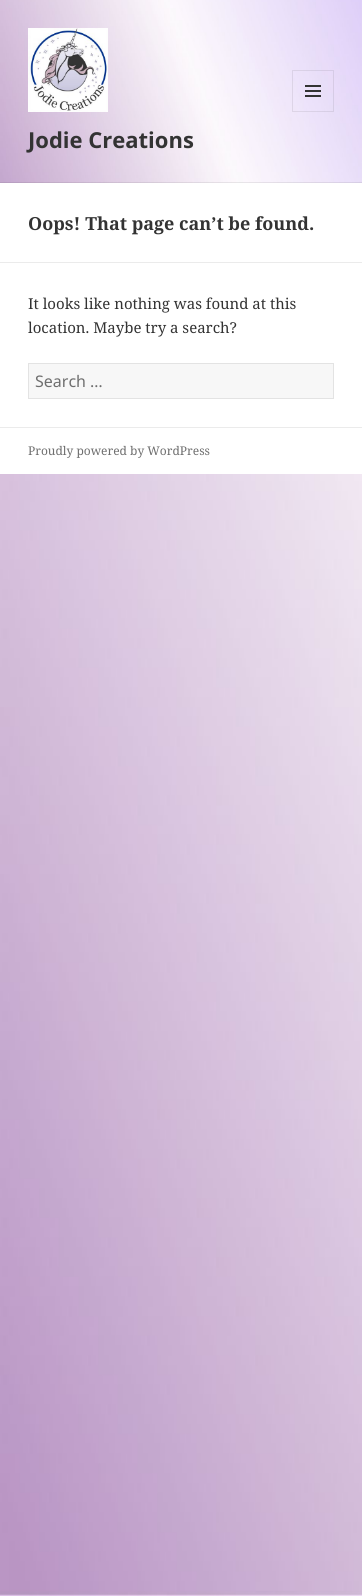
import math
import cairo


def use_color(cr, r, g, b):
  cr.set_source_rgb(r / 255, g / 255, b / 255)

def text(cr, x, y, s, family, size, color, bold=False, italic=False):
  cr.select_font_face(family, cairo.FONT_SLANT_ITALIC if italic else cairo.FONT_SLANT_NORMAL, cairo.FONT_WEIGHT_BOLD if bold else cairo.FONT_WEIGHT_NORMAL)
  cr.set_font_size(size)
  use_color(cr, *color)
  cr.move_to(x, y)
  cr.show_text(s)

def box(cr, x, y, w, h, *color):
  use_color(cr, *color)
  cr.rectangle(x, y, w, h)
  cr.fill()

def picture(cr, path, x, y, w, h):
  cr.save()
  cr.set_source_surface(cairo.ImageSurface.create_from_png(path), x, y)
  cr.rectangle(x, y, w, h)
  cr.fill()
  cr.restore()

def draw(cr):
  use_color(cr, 255, 255, 255)
  cr.paint()
  picture(cr, "img_01.png", 0, 474, 362, 1122)
  picture(cr, "img_02.png", 0, 0, 362, 183)
  cr.set_source_rgba(0.2, 0.2, 0.2, 0.1)
  cr.rectangle(0, 182, 362, 1)
  cr.fill()
  picture(cr, "img_03.png", 28, 28, 80, 84)
  cr.rectangle(292.5, 70.5, 41, 41)
  cr.set_line_width(1)
  cr.stroke()
  picture(cr, "img_04.png", 305, 85, 16, 12)
  box(cr, 0, 262, 362, 1, 235, 235, 235)
  use_color(cr, 247, 247, 247)
  cr.rectangle(28.5, 363.5, 305, 35)
  cr.fill_preserve()
  use_color(cr, 227, 227, 227)
  cr.stroke()
  box(cr, 0, 427, 362, 1, 235, 235, 235)
  text(cr, 28, 148, "Jodie Creations", "Noto Sans", 22, (51, 51, 51), bold=True)
  text(cr, 28, 230, "Oops! That page can’t be found.", "Noto Serif", 18, (51, 51, 51), bold=True)
  text(cr, 28, 309, "It looks like nothing was found at this", "Noto Serif", 15, (51, 51, 51))
  text(cr, 28, 333, "location. Maybe try a search?", "Noto Serif", 15, (51, 51, 51))
  text(cr, 35, 387, "Search …", "Noto Sans", 16, (110, 110, 110))
  text(cr, 28, 455, "Proudly powered by WordPress", "Noto Serif", 12, (110, 110, 110))


surface = cairo.ImageSurface(cairo.FORMAT_RGB24, 362, 1596)
cr = cairo.Context(surface)
options = cairo.FontOptions()
options.set_hint_metrics(cairo.HINT_METRICS_OFF)
options.set_hint_style(cairo.HINT_STYLE_NONE)
cr.set_font_options(options)
cr.set_miter_limit(4)
draw(cr)
surface.write_to_png("out.png")
